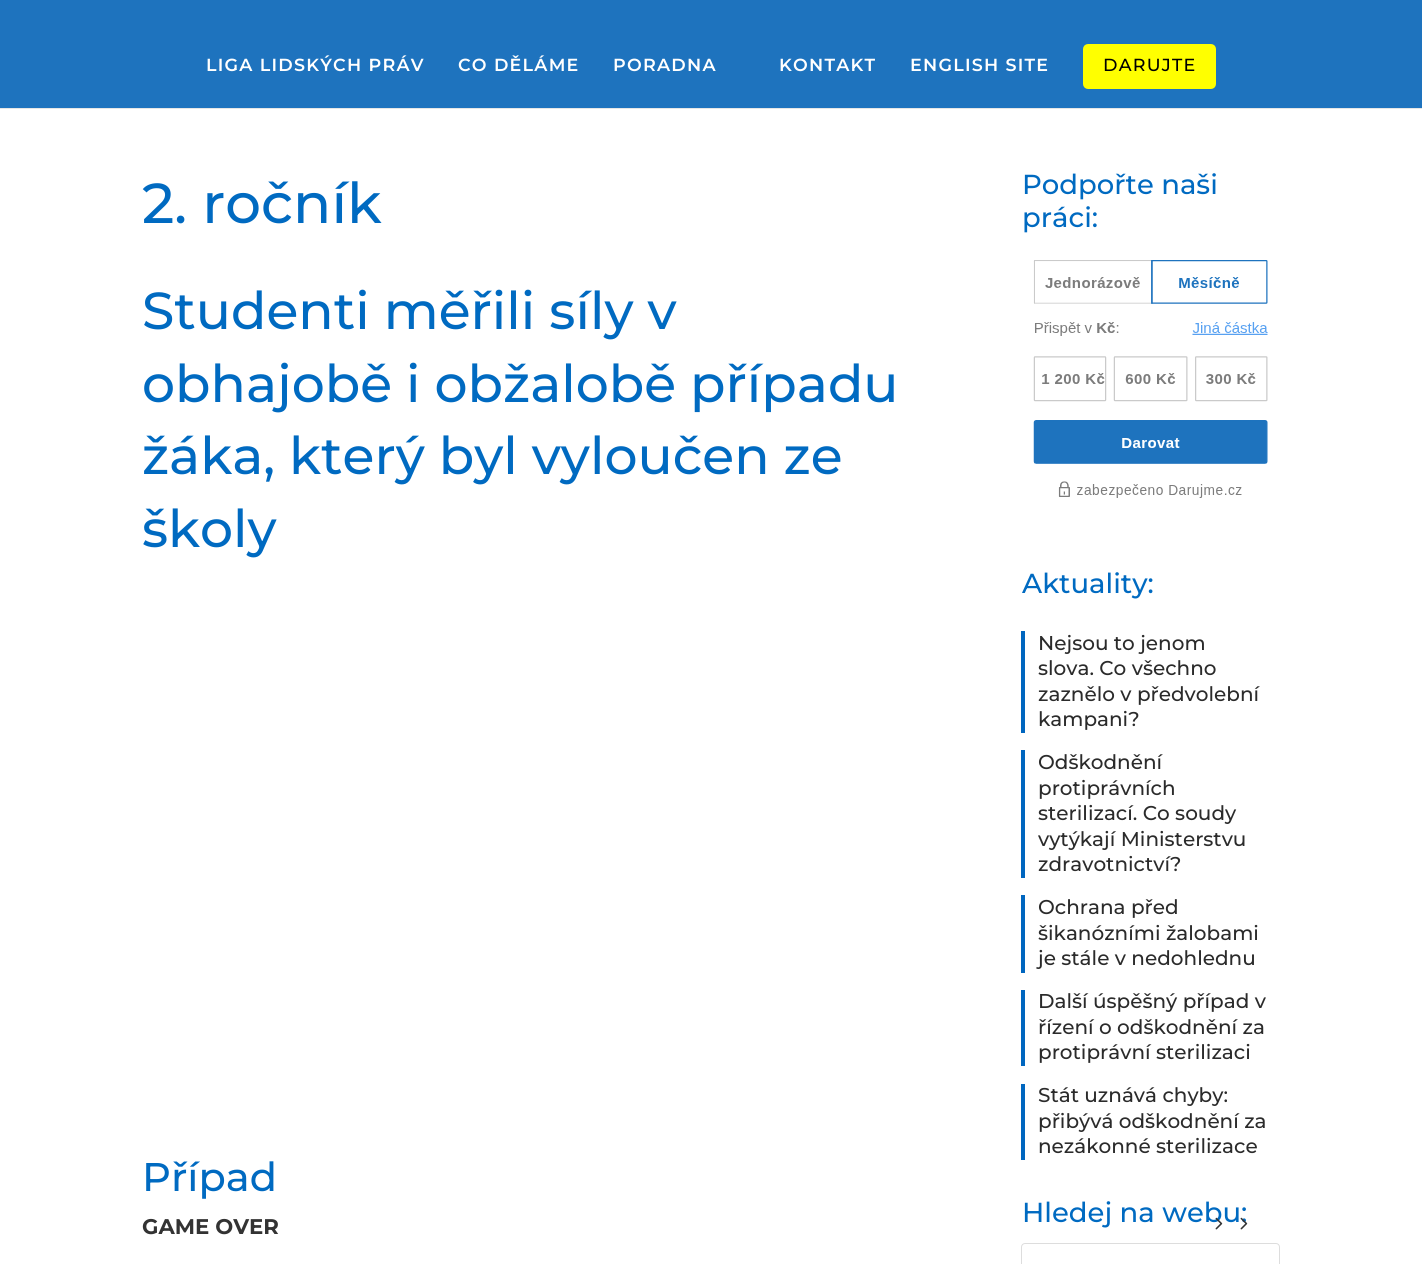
import math
import cairo


def use_color(cr, r, g, b):
  cr.set_source_rgb(r / 255, g / 255, b / 255)

def text(cr, x, y, s, family, size, color, bold=False, italic=False):
  cr.select_font_face(family, cairo.FONT_SLANT_ITALIC if italic else cairo.FONT_SLANT_NORMAL, cairo.FONT_WEIGHT_BOLD if bold else cairo.FONT_WEIGHT_NORMAL)
  cr.set_font_size(size)
  use_color(cr, *color)
  cr.move_to(x, y)
  cr.show_text(s)

def spaced_text(cr, x, y, s, letter, word):
  cr.move_to(x, y)
  for ch in s:
    cr.show_text(ch)
    cr.rel_move_to(letter + word * (ch == ' '), 0)

def box(cr, x, y, w, h, *color):
  use_color(cr, *color)
  cr.rectangle(x, y, w, h)
  cr.fill()

def round_rect(cr, x, y, w, h, r):
  cr.new_sub_path()
  for i, (u, v) in enumerate([(x + w - r, y + h - r), (x + r, y + h - r), (x + r, y + r), (x + w - r, y + r)]):
    cr.arc(u, v, r, i * math.pi / 2, (i + 1) * math.pi / 2)
  cr.close_path()

def picture(cr, path, x, y, w, h):
  cr.save()
  cr.set_source_surface(cairo.ImageSurface.create_from_png(path), x, y)
  cr.rectangle(x, y, w, h)
  cr.fill()
  cr.restore()

def draw(cr):
  use_color(cr, 255, 255, 255)
  cr.paint()
  use_color(cr, 230, 230, 230)
  cr.new_path()
  cr.move_to(0, 108)
  cr.line_to(0, 109)
  cr.line_to(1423, 109)
  cr.line_to(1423, 1)
  cr.line_to(1422, 1)
  cr.line_to(1422, 108)
  cr.close_path()
  cr.fill()
  box(cr, 0, 0, 1422, 108, 30, 115, 190)
  use_color(cr, 255, 255, 0)
  round_rect(cr, 1084.5, 45.5, 130, 42, 3.5)
  cr.fill_preserve()
  cr.set_line_width(3)
  cr.stroke()
  picture(cr, "img_01.png", 1033, 260, 235, 238)
  box(cr, 1021, 631, 4, 102, 0, 102, 191)
  box(cr, 1021, 750, 4, 128, 0, 102, 191)
  box(cr, 1021, 895, 4, 78, 0, 102, 191)
  box(cr, 1021, 990, 4, 76, 0, 102, 191)
  box(cr, 1021, 1084, 4, 76, 0, 102, 191)
  round_rect(cr, 1021.5, 1243.5, 258, 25, 3.5)
  use_color(cr, 221, 221, 221)
  cr.set_line_width(1)
  cr.stroke()
  cr.select_font_face("Montserrat SemiBold")
  cr.set_font_size(17.5)
  use_color(cr, 255, 255, 255)
  spaced_text(cr, 206, 71, "LIGA LIDSKÝCH PRÁV", 1.25, 0)
  spaced_text(cr, 458, 71, "CO DĚLÁME", 1.25, 0)
  spaced_text(cr, 613, 71, "PORADNA", 1.25, 0)
  spaced_text(cr, 779, 71, "KONTAKT", 1.25, 0)
  spaced_text(cr, 910, 71, "ENGLISH SITE", 1.25, 0)
  cr.select_font_face("Montserrat Medium")
  use_color(cr, 0, 0, 0)
  spaced_text(cr, 1103, 71, "DARUJTE", 1.25, 0)
  text(cr, 142, 223, "2. ročník", "Montserrat Medium", 56.25, (0, 106, 193))
  text(cr, 142, 329, "Studenti měřili síly v", "Montserrat Medium", 52, (0, 106, 193))
  text(cr, 142, 402, "obhajobě i obžalobě případu", "Montserrat Medium", 52, (0, 106, 193))
  text(cr, 142, 474, "žáka, který byl vyloučen ze", "Montserrat Medium", 52, (0, 106, 193))
  text(cr, 142, 547, "školy", "Montserrat Medium", 52, (0, 106, 193))
  text(cr, 142, 1191, "Případ", "Montserrat Medium", 40, (0, 106, 193))
  text(cr, 142, 1234, "GAME OVER", "Montserrat", 21.25, (51, 51, 51), bold=True)
  text(cr, 1022, 194, "Podpořte naši", "Montserrat Medium", 27.5, (0, 106, 193))
  text(cr, 1022, 227, "práci:", "Montserrat Medium", 27.5, (0, 106, 193))
  text(cr, 1022, 593, "Aktuality:", "Montserrat Medium", 27.5, (0, 106, 193))
  text(cr, 1038, 650, "Nejsou to jenom", "Montserrat Medium", 20, (43, 43, 43))
  text(cr, 1038, 675, "slova. Co všechno", "Montserrat Medium", 20, (43, 43, 43))
  text(cr, 1038, 701, "zaznělo v předvolební", "Montserrat Medium", 20, (43, 43, 43))
  text(cr, 1038, 726, "kampani?", "Montserrat Medium", 20, (43, 43, 43))
  text(cr, 1038, 769, "Odškodnění", "Montserrat Medium", 20, (43, 43, 43))
  text(cr, 1038, 795, "protiprávních", "Montserrat Medium", 20, (43, 43, 43))
  text(cr, 1038, 820, "sterilizací. Co soudy", "Montserrat Medium", 20, (43, 43, 43))
  text(cr, 1038, 846, "vytýkají Ministerstvu", "Montserrat Medium", 20, (43, 43, 43))
  text(cr, 1038, 871, "zdravotnictví?", "Montserrat Medium", 20, (43, 43, 43))
  text(cr, 1038, 914, "Ochrana před", "Montserrat Medium", 20, (43, 43, 43))
  text(cr, 1038, 940, "šikanózními žalobami", "Montserrat Medium", 20, (43, 43, 43))
  text(cr, 1038, 965, "je stále v nedohlednu", "Montserrat Medium", 20, (43, 43, 43))
  text(cr, 1038, 1008, "Další úspěšný případ v", "Montserrat Medium", 20, (43, 43, 43))
  text(cr, 1038, 1034, "řízení o odškodnění za", "Montserrat Medium", 20, (43, 43, 43))
  text(cr, 1038, 1059, "protiprávní sterilizaci", "Montserrat Medium", 20, (43, 43, 43))
  text(cr, 1038, 1102, "Stát uznává chyby:", "Montserrat Medium", 20, (43, 43, 43))
  text(cr, 1038, 1128, "přibývá odškodnění za", "Montserrat Medium", 20, (43, 43, 43))
  text(cr, 1038, 1153, "nezákonné sterilizace", "Montserrat Medium", 20, (43, 43, 43))
  text(cr, 1022, 1222, "Hledej na webu:", "Montserrat Medium", 27.5, (0, 106, 193))
  picture(cr, "img_02.png", 1215, 1217, 33, 13)


surface = cairo.ImageSurface(cairo.FORMAT_RGB24, 1422, 1264)
cr = cairo.Context(surface)
options = cairo.FontOptions()
options.set_hint_metrics(cairo.HINT_METRICS_OFF)
options.set_hint_style(cairo.HINT_STYLE_NONE)
cr.set_font_options(options)
cr.set_miter_limit(4)
draw(cr)
surface.write_to_png("out.png")
